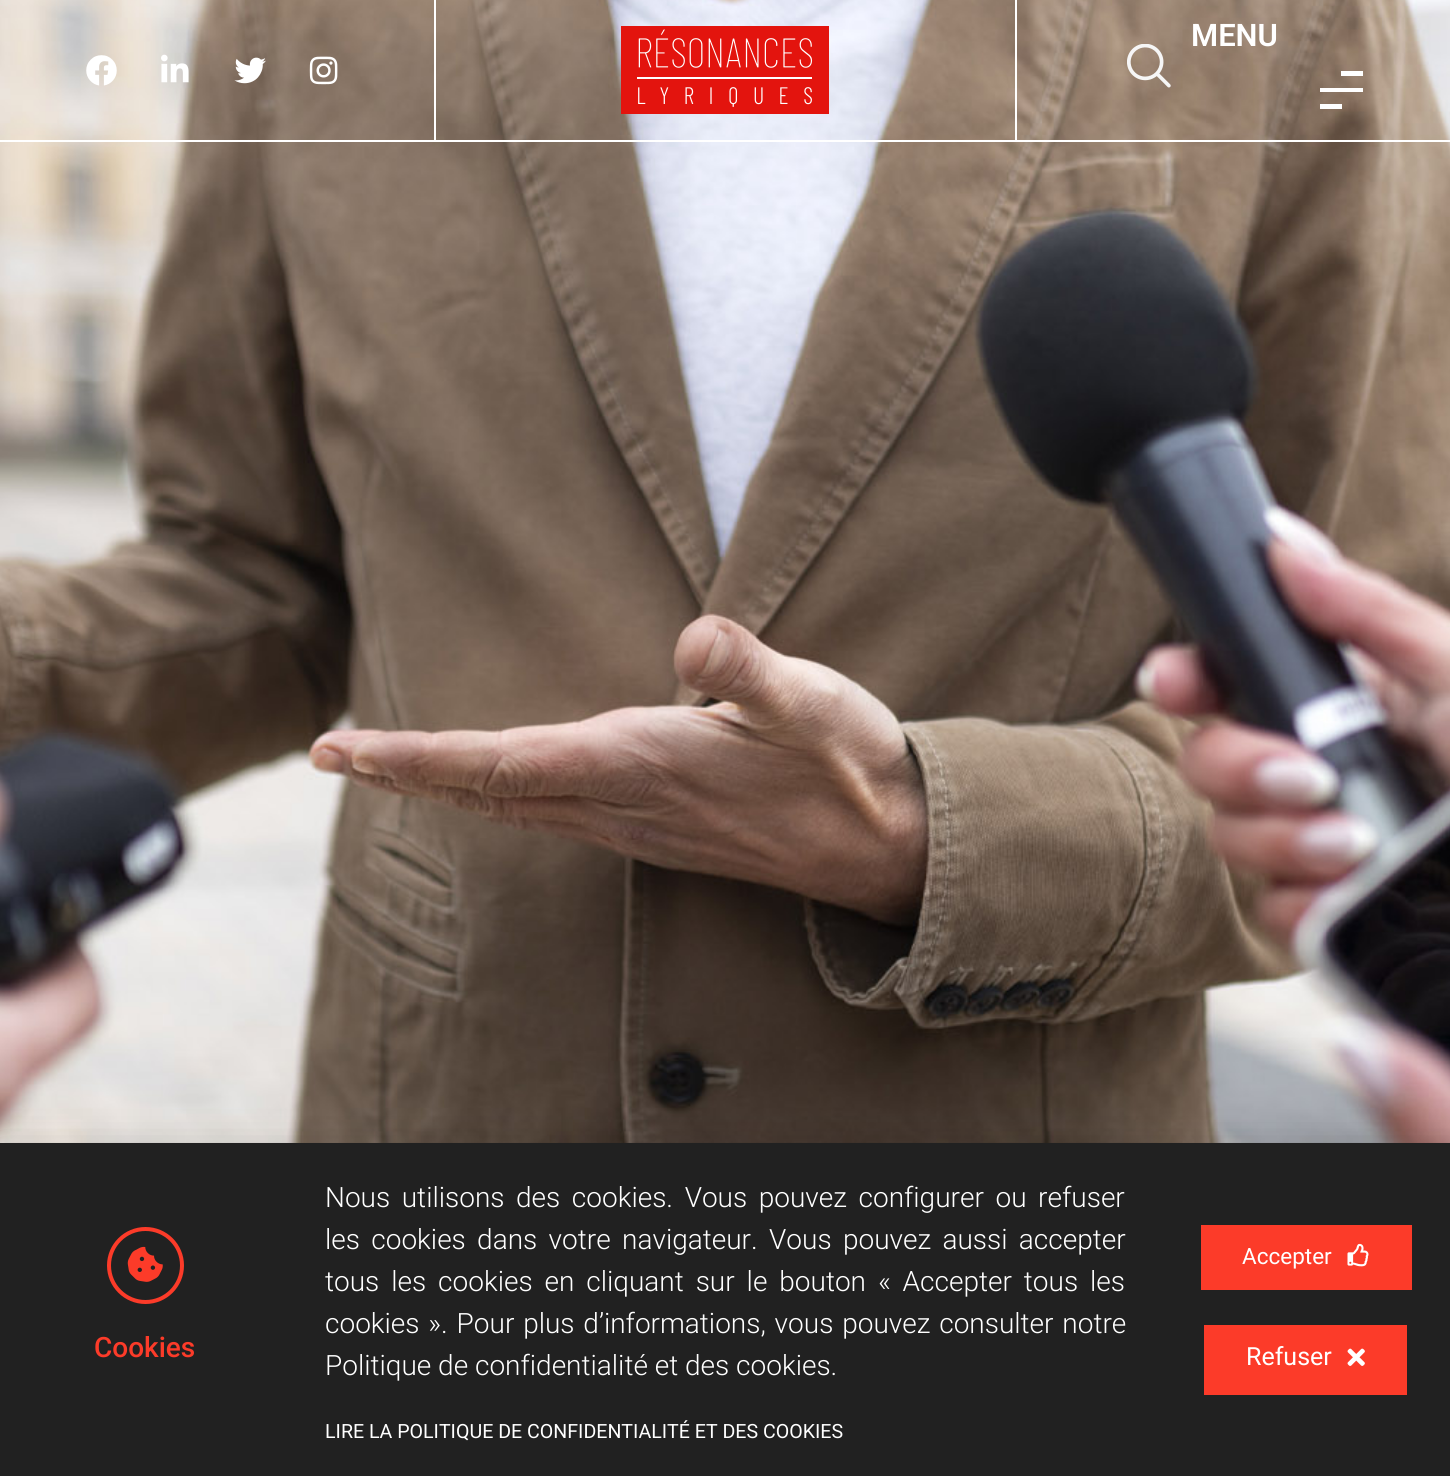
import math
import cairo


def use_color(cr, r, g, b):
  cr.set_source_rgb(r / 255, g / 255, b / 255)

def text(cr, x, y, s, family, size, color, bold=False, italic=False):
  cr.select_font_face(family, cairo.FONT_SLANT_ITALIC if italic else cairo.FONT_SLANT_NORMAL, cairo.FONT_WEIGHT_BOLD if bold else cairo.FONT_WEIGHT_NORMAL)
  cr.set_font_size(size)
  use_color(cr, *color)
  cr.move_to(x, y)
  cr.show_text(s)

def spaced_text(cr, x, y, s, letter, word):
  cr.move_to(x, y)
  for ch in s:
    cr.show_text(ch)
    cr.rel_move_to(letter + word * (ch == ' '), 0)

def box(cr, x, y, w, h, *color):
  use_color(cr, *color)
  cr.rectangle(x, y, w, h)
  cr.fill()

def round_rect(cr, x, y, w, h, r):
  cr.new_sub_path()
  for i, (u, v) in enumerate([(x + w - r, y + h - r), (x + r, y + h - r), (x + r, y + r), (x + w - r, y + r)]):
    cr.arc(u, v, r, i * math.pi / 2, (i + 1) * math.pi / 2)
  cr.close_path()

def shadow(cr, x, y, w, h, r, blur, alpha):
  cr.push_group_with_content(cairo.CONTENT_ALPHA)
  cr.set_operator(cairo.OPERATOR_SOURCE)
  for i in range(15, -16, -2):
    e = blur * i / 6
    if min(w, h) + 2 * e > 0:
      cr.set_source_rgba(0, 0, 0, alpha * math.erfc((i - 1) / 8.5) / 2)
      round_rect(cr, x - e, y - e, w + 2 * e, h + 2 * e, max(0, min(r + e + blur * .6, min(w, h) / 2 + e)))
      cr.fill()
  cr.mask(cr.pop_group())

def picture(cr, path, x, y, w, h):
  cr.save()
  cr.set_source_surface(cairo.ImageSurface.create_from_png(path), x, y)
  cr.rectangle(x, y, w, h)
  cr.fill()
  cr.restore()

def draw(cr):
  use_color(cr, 255, 255, 255)
  cr.paint()
  picture(cr, "img_01.png", 0, 0, 1450, 1143)
  box(cr, 0, 140, 1450, 2, 255, 255, 255)
  box(cr, 434, 0, 2, 140, 255, 255, 255)
  picture(cr, "img_02.png", 86, 55, 31, 31)
  picture(cr, "img_03.png", 161, 54, 28, 29)
  picture(cr, "img_04.png", 234, 57, 32, 27)
  picture(cr, "img_05.png", 309, 56, 29, 29)
  picture(cr, "img_06.png", 621, 26, 208, 88)
  box(cr, 1015, 0, 2, 140, 255, 255, 255)
  picture(cr, "img_07.png", 1127, 44, 44, 44)
  box(cr, 1320, 104, 22, 5, 255, 255, 255)
  box(cr, 1341, 71, 22, 5, 255, 255, 255)
  box(cr, 1320, 88, 43, 4, 255, 255, 255)
  use_color(cr, 0, 0, 0)
  shadow(cr, -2, 1152, 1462, 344, 0, 20, 0.2)
  box(cr, 0, 1143, 1450, 333, 33, 33, 33)
  cr.arc(145.5, 1265.5, 36.5, 0, 2 * math.pi)
  use_color(cr, 252, 59, 41)
  cr.set_line_width(4)
  cr.stroke()
  picture(cr, "img_08.png", 127, 1246, 36, 36)
  box(cr, 1201, 1225, 211, 65, 252, 59, 41)
  picture(cr, "img_09.png", 1347, 1243, 22, 24)
  box(cr, 1204, 1325, 203, 70, 252, 59, 41)
  picture(cr, "img_10.png", 1347, 1348, 18, 18)
  text(cr, 1191, 46, "MENU", "Roboto SemiBold", 31, (255, 255, 255))
  text(cr, 94, 1357, "Cookies", "Roboto Medium", 28, (252, 59, 41))
  cr.select_font_face("Roboto Light")
  use_color(cr, 255, 255, 255)
  spaced_text(cr, 325, 1207, "Nous utilisons des cookies. Vous pouvez configurer ou refuser", 0, 4.75)
  spaced_text(cr, 325, 1249, "les cookies dans votre navigateur. Vous pouvez aussi accepter", 0, 4.5)
  spaced_text(cr, 325, 1291, "tous les cookies en cliquant sur le bouton « Accepter tous les", 0, 5.1)
  spaced_text(cr, 325, 1333, "cookies ». Pour plus d’informations, vous pouvez consulter notre", 0, 2)
  text(cr, 325, 1375, "Politique de confidentialité et des cookies.", "Roboto Light", 28, (255, 255, 255))
  text(cr, 325, 1438, "LIRE LA POLITIQUE DE CONFIDENTIALITÉ ET DES COOKIES", "Roboto", 19.6, (255, 255, 255))
  text(cr, 1242, 1264, "Accepter", "Roboto", 22.5, (255, 255, 255))
  text(cr, 1246, 1365, "Refuser", "Roboto", 25, (255, 255, 255))


surface = cairo.ImageSurface(cairo.FORMAT_RGB24, 1450, 1476)
cr = cairo.Context(surface)
options = cairo.FontOptions()
options.set_hint_metrics(cairo.HINT_METRICS_OFF)
options.set_hint_style(cairo.HINT_STYLE_NONE)
cr.set_font_options(options)
cr.set_miter_limit(4)
draw(cr)
surface.write_to_png("out.png")
